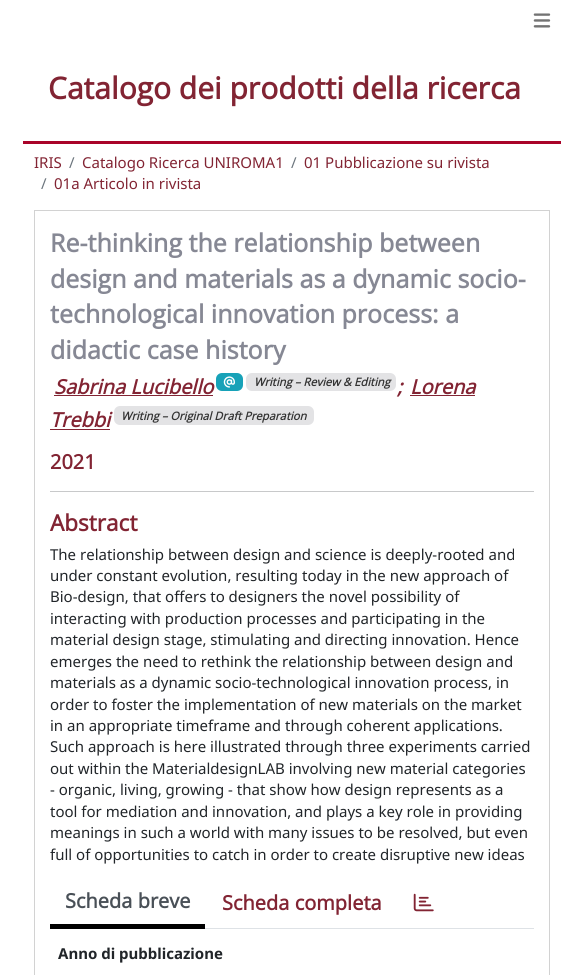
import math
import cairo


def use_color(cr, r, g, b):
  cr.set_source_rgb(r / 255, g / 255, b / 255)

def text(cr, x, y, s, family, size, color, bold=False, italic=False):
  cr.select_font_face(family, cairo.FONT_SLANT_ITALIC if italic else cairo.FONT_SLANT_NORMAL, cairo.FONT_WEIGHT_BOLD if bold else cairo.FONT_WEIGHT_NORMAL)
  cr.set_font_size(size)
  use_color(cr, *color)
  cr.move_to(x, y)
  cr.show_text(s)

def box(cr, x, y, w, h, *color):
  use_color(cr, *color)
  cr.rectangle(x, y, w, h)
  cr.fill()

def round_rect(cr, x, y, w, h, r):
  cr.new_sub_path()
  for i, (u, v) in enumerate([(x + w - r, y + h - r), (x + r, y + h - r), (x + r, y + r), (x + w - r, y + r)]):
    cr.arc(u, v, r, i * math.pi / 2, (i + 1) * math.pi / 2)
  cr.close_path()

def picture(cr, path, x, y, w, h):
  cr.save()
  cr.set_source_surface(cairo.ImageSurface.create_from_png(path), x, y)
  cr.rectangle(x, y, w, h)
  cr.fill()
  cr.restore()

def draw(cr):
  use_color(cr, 255, 255, 255)
  cr.paint()
  picture(cr, "img_01.png", 533, 13, 18, 15)
  box(cr, 23, 141, 538, 3, 169, 3, 41)
  cr.rectangle(34.5, 210.5, 515, 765)
  use_color(cr, 210, 210, 210)
  cr.set_line_width(1)
  cr.stroke()
  box(cr, 54, 395, 159, 1, 130, 36, 51)
  use_color(cr, 23, 162, 184)
  round_rect(cr, 216, 373, 27, 18, 6)
  cr.fill()
  picture(cr, "img_02.png", 223, 376, 12, 12)
  use_color(cr, 227, 227, 229)
  round_rect(cr, 246, 373, 150, 18, 6)
  cr.fill()
  box(cr, 410, 395, 65, 1, 130, 36, 51)
  box(cr, 50, 429, 60, 1, 130, 36, 51)
  use_color(cr, 227, 227, 229)
  round_rect(cr, 114, 406, 200, 19, 6)
  cr.fill()
  box(cr, 50, 491, 484, 1, 200, 201, 202)
  box(cr, 205, 928, 329, 1, 222, 226, 230)
  box(cr, 50, 924, 155, 5, 0, 0, 0)
  picture(cr, "img_03.png", 413, 893, 21, 19)
  text(cr, 48, 99, "Catalogo dei prodotti della ricerca", "Open Sans", 30, (130, 36, 51), bold=True)
  text(cr, 34, 168, "IRIS", "Noto Sans", 15, (130, 36, 51))
  text(cr, 69, 168, "/", "Noto Sans", 15, (108, 117, 125))
  text(cr, 82, 168, "Catalogo Ricerca UNIROMA1", "Noto Sans", 15, (130, 36, 51))
  text(cr, 291, 168, "/", "Noto Sans", 15, (108, 117, 125))
  text(cr, 304, 168, "01 Pubblicazione su rivista", "Noto Sans", 15, (130, 36, 51))
  text(cr, 41, 189, "/", "Noto Sans", 15, (108, 117, 125))
  text(cr, 54, 189, "01a Articolo in rivista", "Noto Sans", 15, (130, 36, 51))
  text(cr, 50, 252, "Re-thinking the relationship between", "Open Sans", 25, (134, 136, 148), bold=True)
  text(cr, 50, 288, "design and materials as a dynamic socio-", "Open Sans", 25, (134, 136, 148), bold=True)
  text(cr, 50, 323, "technological innovation process: a", "Open Sans", 25, (134, 136, 148), bold=True)
  text(cr, 50, 359, "didactic case history", "Open Sans", 25, (134, 136, 148), bold=True)
  text(cr, 54, 394, "Sabrina Lucibello", "Open Sans", 20, (130, 36, 51), bold=True, italic=True)
  text(cr, 254, 386, "Writing – Review & Editing", "Open Sans", 11.25, (52, 52, 52), bold=True, italic=True)
  text(cr, 397, 394, ";", "Open Sans", 20, (130, 36, 51), bold=True, italic=True)
  text(cr, 410, 394, "Lorena", "Open Sans", 20, (130, 36, 51), bold=True, italic=True)
  text(cr, 50, 427, "Trebbi", "Open Sans", 20, (130, 36, 51), bold=True, italic=True)
  text(cr, 121, 420, "Writing – Original Draft Preparation", "Open Sans", 11.25, (52, 52, 52), bold=True, italic=True)
  text(cr, 50, 469, "2021", "Open Sans", 20, (130, 36, 51), bold=True)
  text(cr, 50, 531, "Abstract", "Open Sans", 22.5, (130, 36, 51), bold=True)
  text(cr, 50, 560, "The relationship between design and science is deeply-rooted and", "Noto Sans", 15, (33, 37, 41))
  text(cr, 50, 581, "under constant evolution, resulting today in the new approach of", "Noto Sans", 15, (33, 37, 41))
  text(cr, 50, 602, "Bio-design, that offers to designers the novel possibility of", "Noto Sans", 15, (33, 37, 41))
  text(cr, 50, 624, "interacting with production processes and participating in the", "Noto Sans", 15, (33, 37, 41))
  text(cr, 50, 645, "material design stage, stimulating and directing innovation. Hence", "Noto Sans", 15, (33, 37, 41))
  text(cr, 50, 667, "emerges the need to rethink the relationship between design and", "Noto Sans", 15, (33, 37, 41))
  text(cr, 50, 688, "materials as a dynamic socio-technological innovation process, in", "Noto Sans", 15, (33, 37, 41))
  text(cr, 50, 710, "order to foster the implementation of new materials on the market", "Noto Sans", 15, (33, 37, 41))
  text(cr, 50, 731, "in an appropriate timeframe and through coherent applications.", "Noto Sans", 15, (33, 37, 41))
  text(cr, 50, 752, "Such approach is here illustrated through three experiments carried", "Noto Sans", 15, (33, 37, 41))
  text(cr, 50, 774, "out within the MaterialdesignLAB involving new material categories", "Noto Sans", 15, (33, 37, 41))
  text(cr, 50, 795, "‑ organic, living, growing ‑ that show how design represents as a", "Noto Sans", 15, (33, 37, 41))
  text(cr, 50, 817, "tool for mediation and innovation, and plays a key role in providing", "Noto Sans", 15, (33, 37, 41))
  text(cr, 50, 838, "meanings in such a world with many issues to be resolved, but even", "Noto Sans", 15, (33, 37, 41))
  text(cr, 50, 860, "full of opportunities to catch in order to create disruptive new ideas", "Noto Sans", 15, (33, 37, 41))
  text(cr, 65, 908, "Scheda breve", "Open Sans", 20, (73, 80, 87), bold=True)
  text(cr, 222, 910, "Scheda completa", "Open Sans", 20, (130, 36, 51), bold=True)
  text(cr, 58, 959, "Anno di pubblicazione", "Noto Sans", 15, (33, 37, 41), bold=True)


surface = cairo.ImageSurface(cairo.FORMAT_RGB24, 583, 975)
cr = cairo.Context(surface)
options = cairo.FontOptions()
options.set_hint_metrics(cairo.HINT_METRICS_OFF)
options.set_hint_style(cairo.HINT_STYLE_NONE)
cr.set_font_options(options)
cr.set_miter_limit(4)
draw(cr)
surface.write_to_png("out.png")
